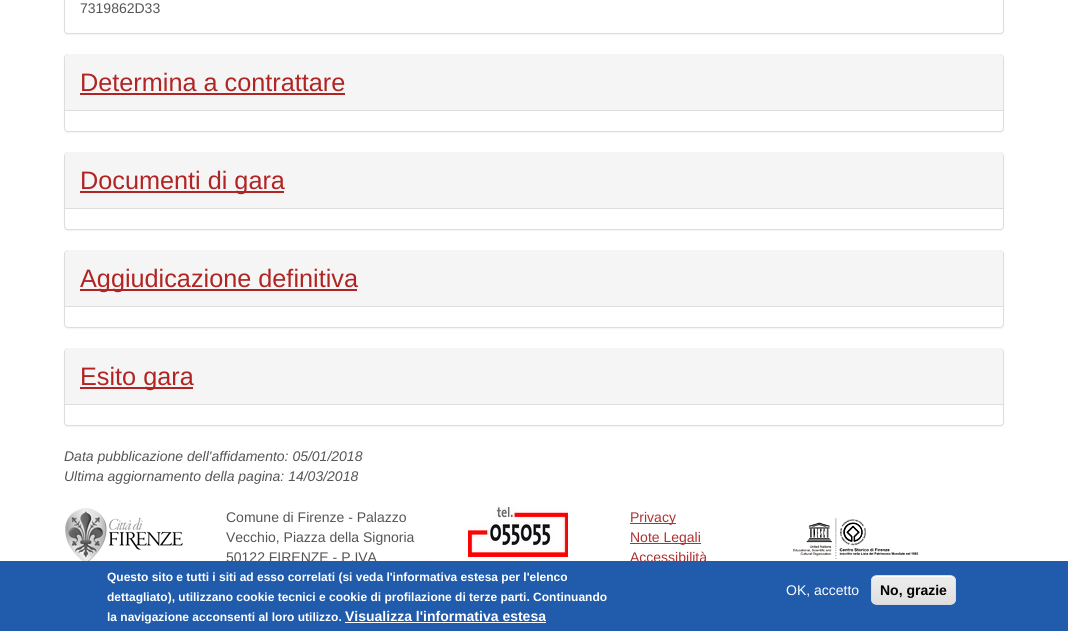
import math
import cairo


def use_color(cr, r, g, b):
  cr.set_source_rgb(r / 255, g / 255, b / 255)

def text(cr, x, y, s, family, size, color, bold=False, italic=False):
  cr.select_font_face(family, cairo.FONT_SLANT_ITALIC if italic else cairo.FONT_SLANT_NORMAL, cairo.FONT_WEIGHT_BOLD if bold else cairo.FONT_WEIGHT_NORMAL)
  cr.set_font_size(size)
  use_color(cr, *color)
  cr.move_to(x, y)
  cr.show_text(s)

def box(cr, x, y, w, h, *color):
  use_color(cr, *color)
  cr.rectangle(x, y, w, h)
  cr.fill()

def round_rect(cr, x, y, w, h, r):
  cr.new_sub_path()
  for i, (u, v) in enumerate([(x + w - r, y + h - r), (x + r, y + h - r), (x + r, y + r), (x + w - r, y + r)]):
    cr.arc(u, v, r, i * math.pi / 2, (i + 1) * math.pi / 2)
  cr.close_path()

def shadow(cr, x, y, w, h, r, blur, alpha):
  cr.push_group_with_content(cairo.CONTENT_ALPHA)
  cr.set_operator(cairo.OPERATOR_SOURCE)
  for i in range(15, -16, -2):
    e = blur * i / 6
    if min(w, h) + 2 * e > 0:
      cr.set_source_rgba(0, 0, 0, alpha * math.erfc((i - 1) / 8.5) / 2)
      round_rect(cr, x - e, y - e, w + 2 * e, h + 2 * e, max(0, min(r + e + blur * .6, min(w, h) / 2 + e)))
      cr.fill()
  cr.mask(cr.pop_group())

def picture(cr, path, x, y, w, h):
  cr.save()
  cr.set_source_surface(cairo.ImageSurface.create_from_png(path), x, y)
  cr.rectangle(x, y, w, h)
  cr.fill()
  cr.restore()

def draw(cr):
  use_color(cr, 255, 255, 255)
  cr.paint()
  use_color(cr, 0, 0, 0)
  shadow(cr, 64, -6, 940, 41, 4, 0.5, 0.05)
  use_color(cr, 255, 255, 255)
  round_rect(cr, 64.5, -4.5, 939, 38, 3.5)
  cr.fill_preserve()
  use_color(cr, 221, 221, 221)
  cr.set_line_width(1)
  cr.stroke()
  use_color(cr, 0, 0, 0)
  shadow(cr, 64, 55, 940, 78, 4, 0.5, 0.05)
  use_color(cr, 255, 255, 255)
  round_rect(cr, 64.5, 54.5, 939, 77, 3.5)
  cr.fill_preserve()
  use_color(cr, 221, 221, 221)
  cr.stroke()
  use_color(cr, 245, 245, 245)
  cr.new_path()
  cr.move_to(68, 54)
  cr.line_to(1000, 54)
  cr.curve_to(1001.5, 54, 1003, 55.5, 1003, 57)
  cr.line_to(1003, 111)
  cr.line_to(65, 111)
  cr.line_to(65, 57)
  cr.curve_to(65, 55.5, 66.5, 54, 68, 54)
  cr.close_path()
  cr.fill()
  box(cr, 65, 110, 938, 1, 221, 221, 221)
  box(cr, 80, 93, 265, 2, 176, 37, 36)
  use_color(cr, 0, 0, 0)
  shadow(cr, 64, 153, 940, 78, 4, 0.5, 0.05)
  use_color(cr, 255, 255, 255)
  round_rect(cr, 64.5, 152.5, 939, 77, 3.5)
  cr.fill_preserve()
  use_color(cr, 221, 221, 221)
  cr.stroke()
  use_color(cr, 245, 245, 245)
  cr.new_path()
  cr.move_to(68, 152)
  cr.line_to(1000, 152)
  cr.curve_to(1001.5, 152, 1003, 153.5, 1003, 155)
  cr.line_to(1003, 209)
  cr.line_to(65, 209)
  cr.line_to(65, 155)
  cr.curve_to(65, 153.5, 66.5, 152, 68, 152)
  cr.close_path()
  cr.fill()
  box(cr, 65, 208, 938, 1, 221, 221, 221)
  box(cr, 80, 191, 204, 2, 176, 37, 36)
  use_color(cr, 0, 0, 0)
  shadow(cr, 64, 251, 940, 78, 4, 0.5, 0.05)
  use_color(cr, 255, 255, 255)
  round_rect(cr, 64.5, 250.5, 939, 77, 3.5)
  cr.fill_preserve()
  use_color(cr, 221, 221, 221)
  cr.stroke()
  use_color(cr, 245, 245, 245)
  cr.new_path()
  cr.move_to(68, 250)
  cr.line_to(1000, 250)
  cr.curve_to(1001.5, 250, 1003, 251.5, 1003, 253)
  cr.line_to(1003, 307)
  cr.line_to(65, 307)
  cr.line_to(65, 253)
  cr.curve_to(65, 251.5, 66.5, 250, 68, 250)
  cr.close_path()
  cr.fill()
  box(cr, 65, 306, 938, 1, 221, 221, 221)
  box(cr, 80, 289, 277, 2, 176, 37, 36)
  use_color(cr, 0, 0, 0)
  shadow(cr, 64, 349, 940, 78, 4, 0.5, 0.05)
  use_color(cr, 255, 255, 255)
  round_rect(cr, 64.5, 348.5, 939, 77, 3.5)
  cr.fill_preserve()
  use_color(cr, 221, 221, 221)
  cr.stroke()
  use_color(cr, 245, 245, 245)
  cr.new_path()
  cr.move_to(68, 348)
  cr.line_to(1000, 348)
  cr.curve_to(1001.5, 348, 1003, 349.5, 1003, 351)
  cr.line_to(1003, 405)
  cr.line_to(65, 405)
  cr.line_to(65, 351)
  cr.curve_to(65, 349.5, 66.5, 348, 68, 348)
  cr.close_path()
  cr.fill()
  box(cr, 65, 404, 938, 1, 221, 221, 221)
  box(cr, 80, 387, 113, 2, 176, 37, 36)
  picture(cr, "img_01.png", 65, 508, 118, 53)
  picture(cr, "img_02.png", 468, 507, 100, 50)
  box(cr, 630, 523, 46, 1, 174, 49, 49)
  box(cr, 630, 543, 71, 1, 174, 49, 49)
  picture(cr, "img_03.png", 793, 518, 126, 41)
  text(cr, 80, 13, "7319862D33", "Liberation Sans", 14, (85, 85, 85))
  text(cr, 80, 91, "Determina a contrattare", "Liberation Sans", 25.25, (176, 37, 36))
  text(cr, 80, 189, "Documenti di gara", "Liberation Sans", 25.25, (176, 37, 36))
  text(cr, 80, 287, "Aggiudicazione definitiva", "Liberation Sans", 25.25, (176, 37, 36))
  text(cr, 80, 385, "Esito gara", "Liberation Sans", 25.25, (176, 37, 36))
  text(cr, 64, 461, "Data pubblicazione dell'affidamento: 05/01/2018", "Liberation Sans", 14, (85, 85, 85), italic=True)
  text(cr, 64, 481, "Ultima aggiornamento della pagina: 14/03/2018", "Liberation Sans", 14, (85, 85, 85), italic=True)
  text(cr, 226, 522, "Comune di Firenze - Palazzo", "Liberation Sans", 14, (85, 85, 85))
  text(cr, 226, 542, "Vecchio, Piazza della Signoria", "Liberation Sans", 14, (85, 85, 85))
  text(cr, 226, 562, "50122 FIRENZE - P.IVA", "Liberation Sans", 14, (85, 85, 85))
  text(cr, 630, 522, "Privacy", "Liberation Sans", 14, (174, 49, 49))
  text(cr, 630, 542, "Note Legali", "Liberation Sans", 14, (174, 49, 49))
  text(cr, 630, 562, "Accessibilità", "Liberation Sans", 14, (174, 49, 49))
  box(cr, 0, 561, 1068, 70, 32, 91, 172)
  text(cr, 107, 581, "Questo sito e tutti i siti ad esso correlati (si veda l'informativa estesa per l'elenco", "Liberation Sans", 12, (255, 255, 255), bold=True)
  text(cr, 107, 601, "dettagliato), utilizzano cookie tecnici e cookie di profilazione di terze parti. Continuando", "Liberation Sans", 12, (255, 255, 255), bold=True)
  text(cr, 107, 621, "la navigazione acconsenti al loro utilizzo.", "Liberation Sans", 12, (255, 255, 255), bold=True)
  text(cr, 345, 621, "Visualizza l'informativa estesa", "Liberation Sans", 14, (255, 255, 255), bold=True)
  box(cr, 345, 622, 201, 1, 255, 255, 255)
  text(cr, 786, 595, "OK, accetto", "Liberation Sans", 14, (255, 255, 255))
  cr.save()
  round_rect(cr, 871, 575, 85, 30, 6)
  cr.clip()
  gradient = cairo.LinearGradient(914, 576, 914, 604)
  gradient.add_color_stop_rgba(0.05, 0.929, 0.929, 0.929, 1)
  gradient.add_color_stop_rgba(1, 0.875, 0.875, 0.875, 1)
  cr.set_source(gradient)
  cr.rectangle(871, 576, 85, 28)
  cr.fill()
  cr.restore()
  cr.new_path()
  cr.move_to(877, 577)
  cr.line_to(950, 577)
  cr.curve_to(953, 577, 955, 579, 955, 582)
  cr.curve_to(955, 573, 944, 576, 938, 576)
  cr.line_to(889, 576)
  cr.curve_to(883, 576, 872, 573, 872, 582)
  cr.curve_to(872, 579, 874, 577, 877, 577)
  cr.close_path()
  cr.fill()
  round_rect(cr, 871.5, 575.5, 84, 29, 5.5)
  use_color(cr, 220, 220, 220)
  cr.stroke()
  text(cr, 880, 595, "No, grazie", "Liberation Sans", 14, (0, 0, 0), bold=True)


surface = cairo.ImageSurface(cairo.FORMAT_RGB24, 1068, 631)
cr = cairo.Context(surface)
options = cairo.FontOptions()
options.set_hint_metrics(cairo.HINT_METRICS_OFF)
options.set_hint_style(cairo.HINT_STYLE_NONE)
cr.set_font_options(options)
cr.set_miter_limit(4)
draw(cr)
surface.write_to_png("out.png")
